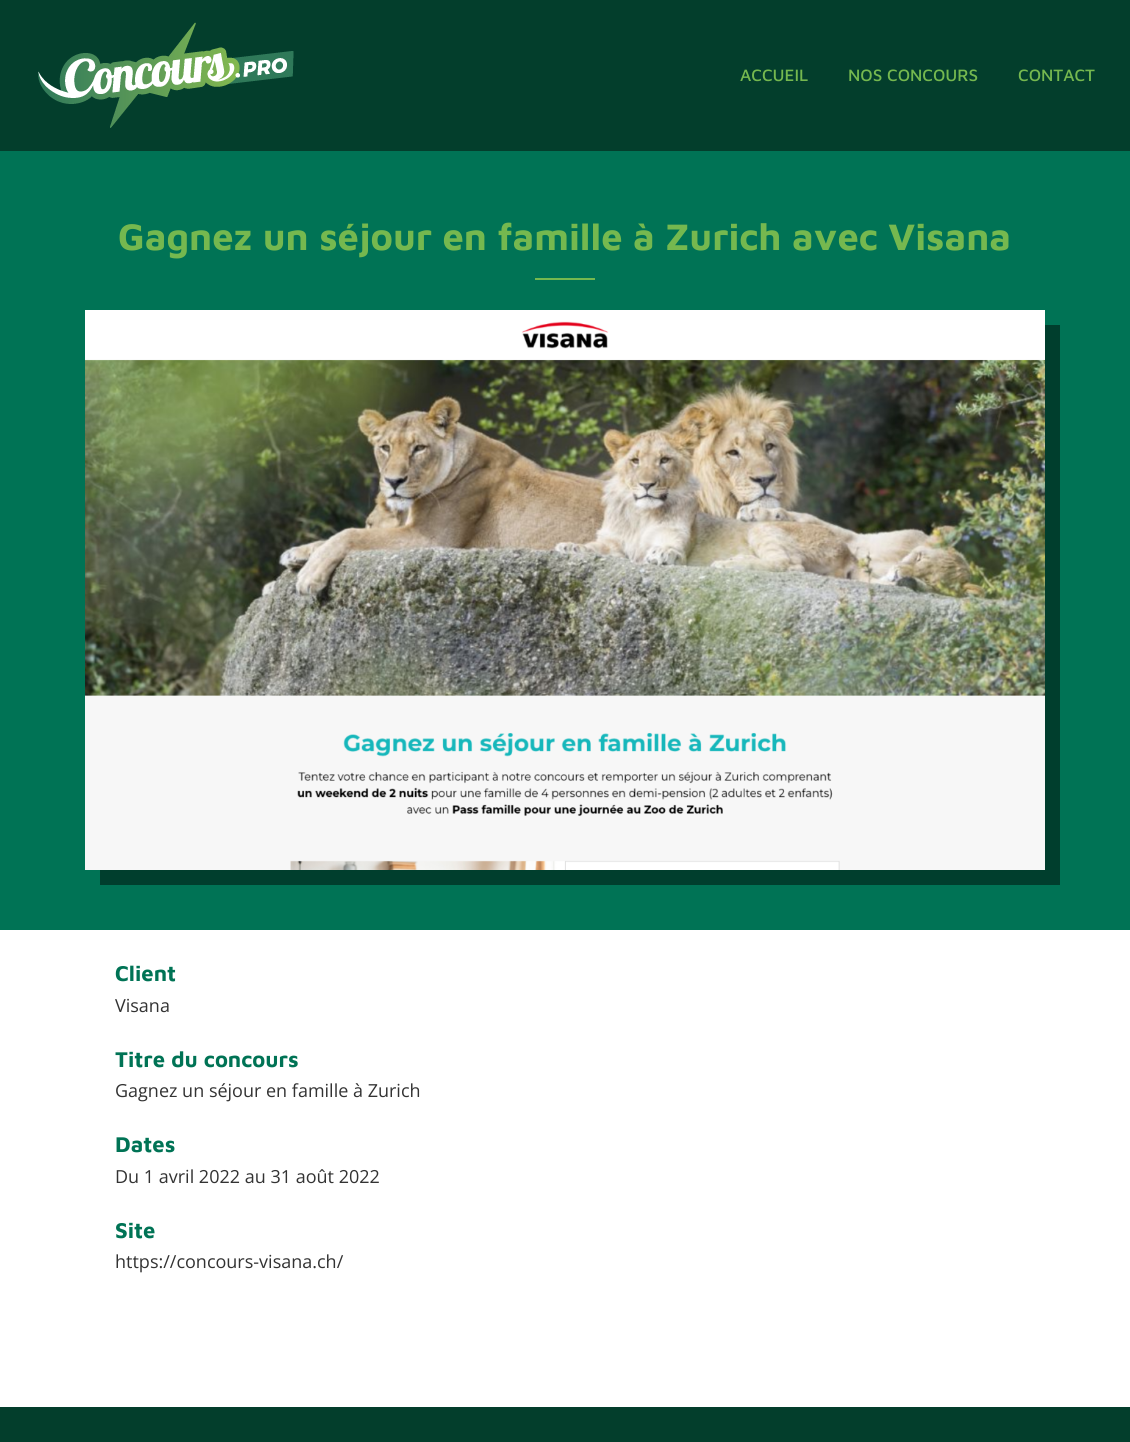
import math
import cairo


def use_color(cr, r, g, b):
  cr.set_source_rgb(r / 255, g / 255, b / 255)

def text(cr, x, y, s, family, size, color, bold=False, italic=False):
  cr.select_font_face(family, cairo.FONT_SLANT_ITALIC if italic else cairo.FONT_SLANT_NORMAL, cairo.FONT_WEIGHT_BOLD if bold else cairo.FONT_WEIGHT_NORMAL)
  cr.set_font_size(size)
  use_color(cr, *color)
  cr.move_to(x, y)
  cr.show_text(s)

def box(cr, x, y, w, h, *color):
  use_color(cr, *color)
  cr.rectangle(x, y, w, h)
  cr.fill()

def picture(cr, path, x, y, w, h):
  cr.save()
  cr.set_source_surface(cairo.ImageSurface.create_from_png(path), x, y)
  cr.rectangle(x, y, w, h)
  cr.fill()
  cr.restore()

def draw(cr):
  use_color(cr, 255, 255, 255)
  cr.paint()
  box(cr, 0, 0, 1130, 151, 3, 62, 44)
  picture(cr, "img_01.png", 38, 22, 256, 106)
  box(cr, 0, 151, 1130, 779, 0, 115, 85)
  box(cr, 535, 278, 60, 2, 117, 184, 79)
  use_color(cr, 0, 62, 45)
  cr.new_path()
  cr.move_to(100, 870)
  cr.line_to(100, 885)
  cr.line_to(1060, 885)
  cr.line_to(1060, 325)
  cr.line_to(1045, 325)
  cr.line_to(1045, 870)
  cr.close_path()
  cr.fill()
  picture(cr, "img_02.png", 85, 310, 960, 560)
  box(cr, 0, 1407, 1130, 35, 3, 62, 44)
  text(cr, 740, 81, "ACCUEIL", "Maven Pro Medium", 17, (117, 184, 79))
  text(cr, 848, 81, "NOS CONCOURS", "Maven Pro Medium", 17, (117, 184, 79))
  text(cr, 1018, 81, "CONTACT", "Maven Pro Medium", 17, (117, 184, 79))
  text(cr, 118, 250, "Gagnez un séjour en famille à Zurich avec Visana", "Maven Pro", 38, (117, 184, 79), bold=True)
  text(cr, 115, 981, "Client", "Maven Pro", 22, (0, 115, 85), bold=True)
  text(cr, 115, 1012, "Visana", "Open Sans", 18, (51, 51, 51))
  text(cr, 115, 1067, "Titre du concours", "Maven Pro", 22, (0, 115, 85), bold=True)
  text(cr, 115, 1097, "Gagnez un séjour en famille à Zurich", "Open Sans", 18, (51, 51, 51))
  text(cr, 115, 1152, "Dates", "Maven Pro", 22, (0, 115, 85), bold=True)
  text(cr, 115, 1183, "Du 1 avril 2022 au 31 août 2022", "Open Sans", 18, (51, 51, 51))
  text(cr, 115, 1238, "Site", "Maven Pro", 22, (0, 115, 85), bold=True)
  text(cr, 115, 1268, "https://concours-visana.ch/", "Open Sans", 18, (51, 51, 51))


surface = cairo.ImageSurface(cairo.FORMAT_RGB24, 1130, 1442)
cr = cairo.Context(surface)
options = cairo.FontOptions()
options.set_hint_metrics(cairo.HINT_METRICS_OFF)
options.set_hint_style(cairo.HINT_STYLE_NONE)
cr.set_font_options(options)
cr.set_miter_limit(4)
draw(cr)
surface.write_to_png("out.png")
